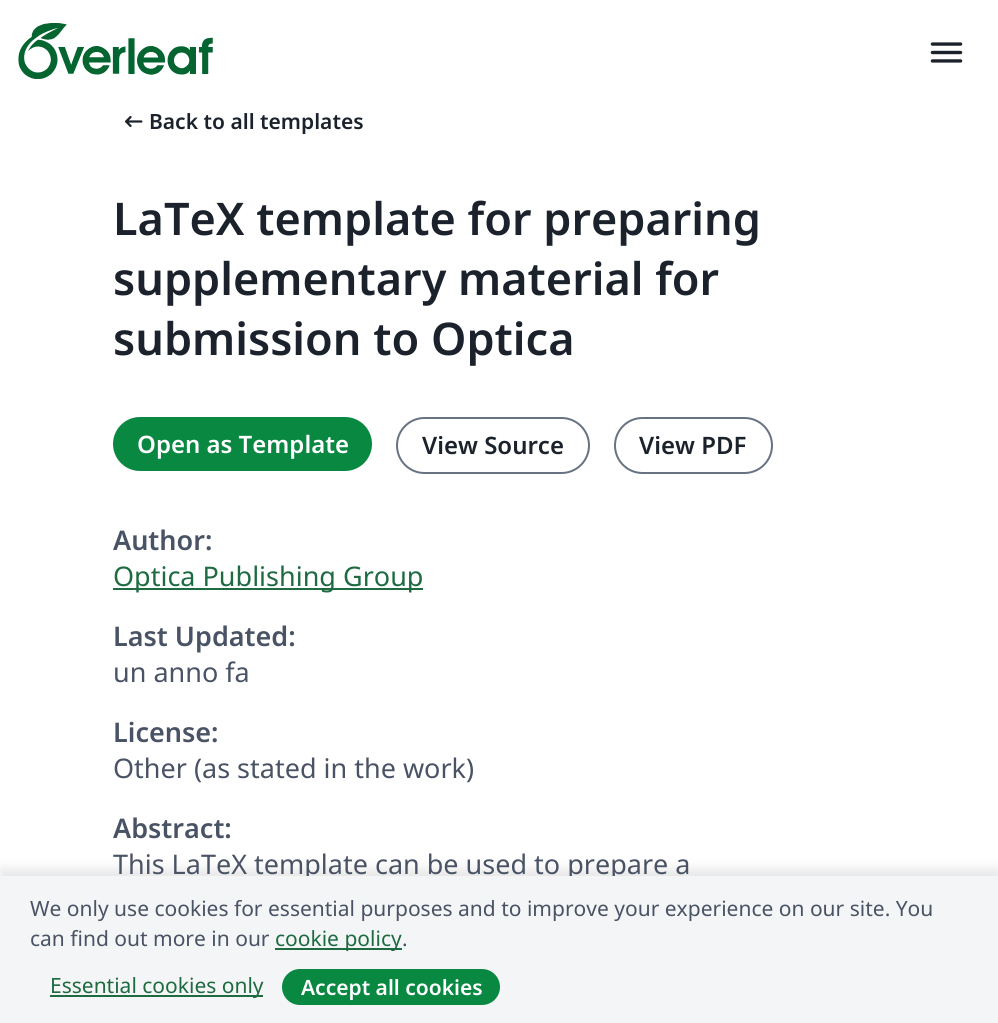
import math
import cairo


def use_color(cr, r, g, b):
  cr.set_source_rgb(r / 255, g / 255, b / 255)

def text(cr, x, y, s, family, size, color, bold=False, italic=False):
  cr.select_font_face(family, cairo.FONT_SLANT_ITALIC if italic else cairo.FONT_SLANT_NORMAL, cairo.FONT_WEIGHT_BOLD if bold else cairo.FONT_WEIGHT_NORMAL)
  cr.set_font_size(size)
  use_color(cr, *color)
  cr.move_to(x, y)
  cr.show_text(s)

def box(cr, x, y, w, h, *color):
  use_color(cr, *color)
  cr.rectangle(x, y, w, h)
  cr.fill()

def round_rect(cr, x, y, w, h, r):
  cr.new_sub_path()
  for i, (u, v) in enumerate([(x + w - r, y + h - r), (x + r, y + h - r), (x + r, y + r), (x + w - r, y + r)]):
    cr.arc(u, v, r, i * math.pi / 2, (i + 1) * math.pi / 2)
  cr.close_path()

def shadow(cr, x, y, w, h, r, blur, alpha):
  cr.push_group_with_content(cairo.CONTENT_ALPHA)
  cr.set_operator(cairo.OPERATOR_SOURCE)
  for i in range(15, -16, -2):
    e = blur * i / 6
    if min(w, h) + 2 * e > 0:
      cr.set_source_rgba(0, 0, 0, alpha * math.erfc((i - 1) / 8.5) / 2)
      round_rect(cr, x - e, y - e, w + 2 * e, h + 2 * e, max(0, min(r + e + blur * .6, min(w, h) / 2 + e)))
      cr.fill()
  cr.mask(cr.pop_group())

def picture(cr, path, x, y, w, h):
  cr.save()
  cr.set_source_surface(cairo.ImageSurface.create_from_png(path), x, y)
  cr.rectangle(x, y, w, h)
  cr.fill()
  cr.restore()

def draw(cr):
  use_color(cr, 255, 255, 255)
  cr.paint()
  picture(cr, "img_01.png", 18, 23, 195, 56)
  picture(cr, "img_02.png", 930, 42, 33, 21)
  picture(cr, "img_03.png", 125, 116, 18, 11)
  use_color(cr, 9, 136, 66)
  round_rect(cr, 113, 417, 259, 54, 27)
  cr.fill()
  round_rect(cr, 397, 418, 192, 55, 27.5)
  use_color(cr, 103, 114, 131)
  cr.stroke()
  round_rect(cr, 615, 418, 157, 55, 27.5)
  cr.stroke()
  box(cr, 113, 588, 310, 2, 30, 107, 65)
  use_color(cr, 0, 0, 0)
  shadow(cr, 0, 869, 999, 147, 0, 6, 0.1)
  text(cr, 149, 129, "Back to all templates", "Noto Sans SemiBold", 21, (27, 34, 44))
  text(cr, 113, 235, "LaTeX template for preparing", "Noto Sans SemiBold", 45, (27, 34, 44))
  text(cr, 113, 295, "supplementary material for", "Noto Sans SemiBold", 45, (27, 34, 44))
  text(cr, 113, 355, "submission to Optica", "Noto Sans SemiBold", 45, (27, 34, 44))
  text(cr, 137, 453, "Open as Template", "Noto Sans SemiBold", 24, (255, 255, 255))
  text(cr, 422, 454, "View Source", "Noto Sans SemiBold", 24, (27, 34, 44))
  text(cr, 639, 454, "View PDF", "Noto Sans SemiBold", 24, (27, 34, 44))
  text(cr, 113, 550, "Author:", "Noto Sans SemiBold", 27, (73, 83, 101))
  text(cr, 113, 586, "Optica Publishing Group", "Noto Sans", 27, (30, 107, 65))
  text(cr, 113, 646, "Last Updated:", "Noto Sans SemiBold", 27, (73, 83, 101))
  text(cr, 113, 682, "un anno fa", "Noto Sans", 27, (73, 83, 101))
  text(cr, 113, 742, "License:", "Noto Sans SemiBold", 27, (73, 83, 101))
  text(cr, 113, 778, "Other (as stated in the work)", "Noto Sans", 27, (73, 83, 101))
  text(cr, 113, 838, "Abstract:", "Noto Sans SemiBold", 27, (73, 83, 101))
  text(cr, 113, 874, "This LaTeX template can be used to prepare a", "Noto Sans", 27, (73, 83, 101))
  box(cr, 0, 876, 998, 147, 244, 245, 246)
  text(cr, 30, 916, "We only use cookies for essential purposes and to improve your experience on our site. You", "Noto Sans", 21, (73, 83, 101))
  text(cr, 30, 946, "can find out more in our", "Noto Sans", 21, (73, 83, 101))
  box(cr, 275, 948, 127, 2, 30, 107, 65)
  text(cr, 275, 946, "cookie policy", "Noto Sans", 21, (30, 107, 65))
  text(cr, 402, 946, ".", "Noto Sans", 21, (73, 83, 101))
  box(cr, 50, 995, 213, 2, 30, 107, 65)
  text(cr, 50, 993, "Essential cookies only", "Noto Sans", 21, (30, 107, 65))
  use_color(cr, 9, 136, 66)
  round_rect(cr, 282, 969, 218, 36, 18)
  cr.fill()
  text(cr, 301, 995, "Accept all cookies", "Noto Sans SemiBold", 21, (255, 255, 255))


surface = cairo.ImageSurface(cairo.FORMAT_RGB24, 998, 1023)
cr = cairo.Context(surface)
options = cairo.FontOptions()
options.set_hint_metrics(cairo.HINT_METRICS_OFF)
options.set_hint_style(cairo.HINT_STYLE_NONE)
cr.set_font_options(options)
cr.set_miter_limit(4)
draw(cr)
surface.write_to_png("out.png")
